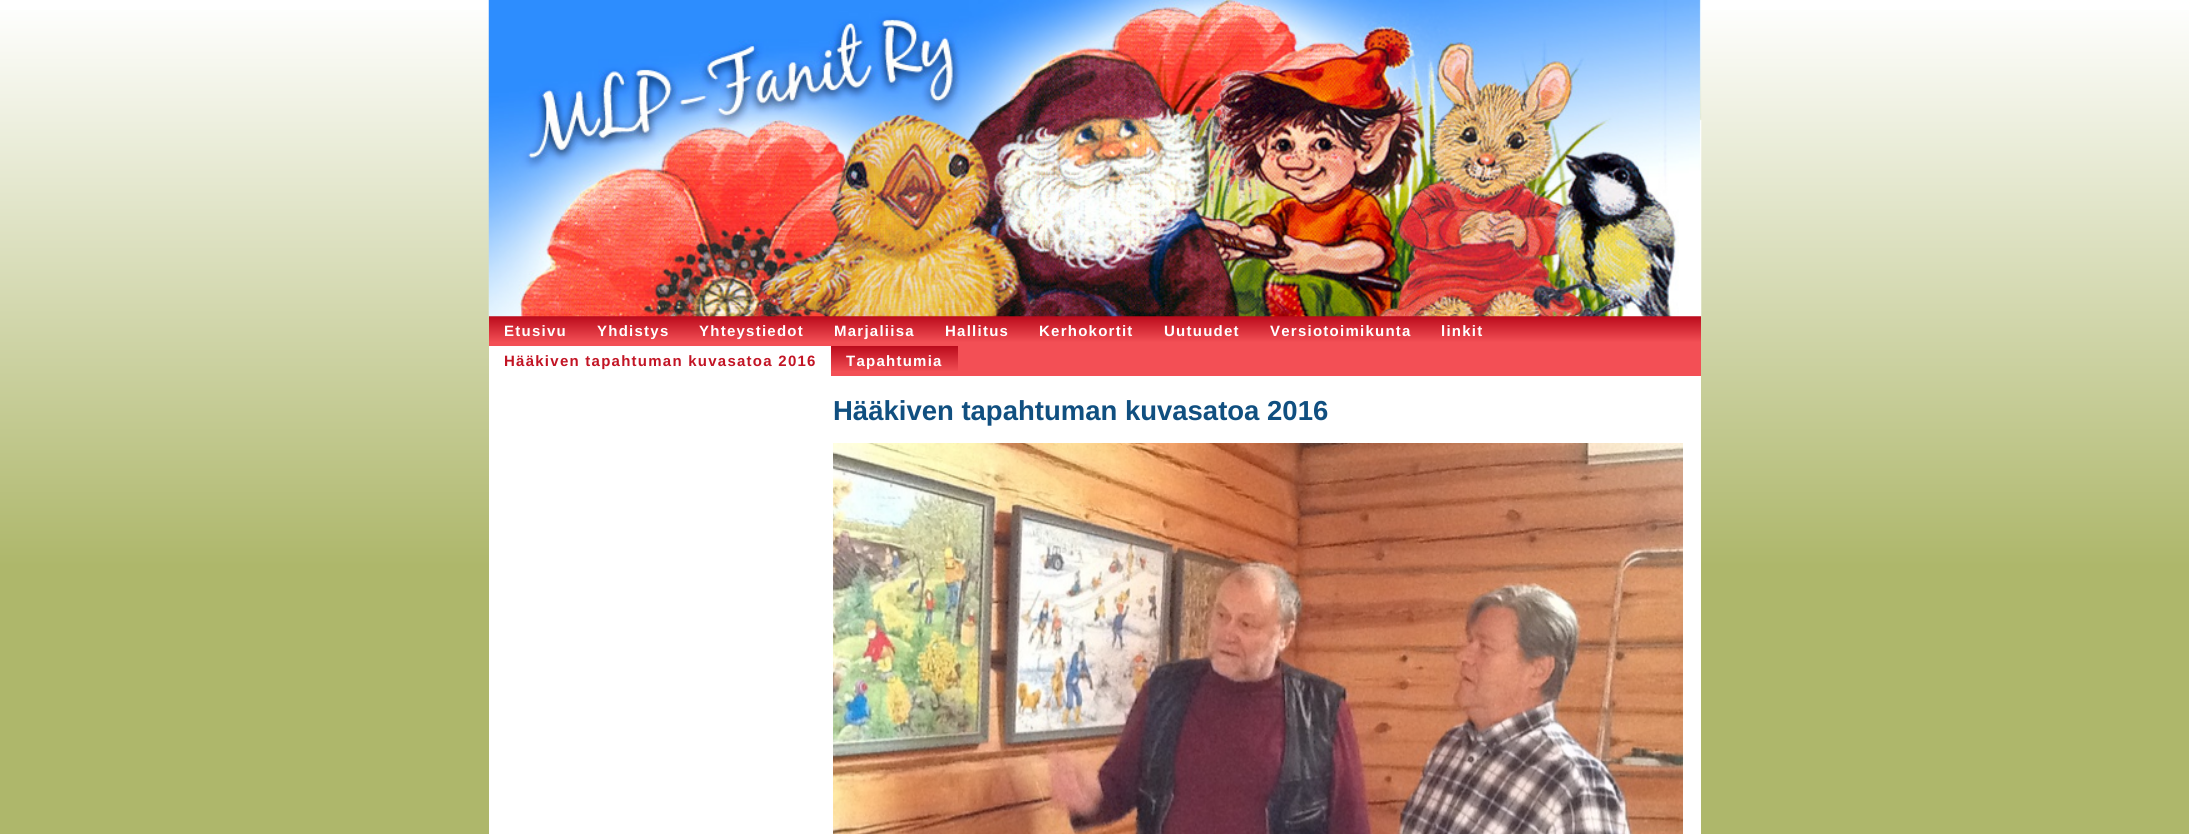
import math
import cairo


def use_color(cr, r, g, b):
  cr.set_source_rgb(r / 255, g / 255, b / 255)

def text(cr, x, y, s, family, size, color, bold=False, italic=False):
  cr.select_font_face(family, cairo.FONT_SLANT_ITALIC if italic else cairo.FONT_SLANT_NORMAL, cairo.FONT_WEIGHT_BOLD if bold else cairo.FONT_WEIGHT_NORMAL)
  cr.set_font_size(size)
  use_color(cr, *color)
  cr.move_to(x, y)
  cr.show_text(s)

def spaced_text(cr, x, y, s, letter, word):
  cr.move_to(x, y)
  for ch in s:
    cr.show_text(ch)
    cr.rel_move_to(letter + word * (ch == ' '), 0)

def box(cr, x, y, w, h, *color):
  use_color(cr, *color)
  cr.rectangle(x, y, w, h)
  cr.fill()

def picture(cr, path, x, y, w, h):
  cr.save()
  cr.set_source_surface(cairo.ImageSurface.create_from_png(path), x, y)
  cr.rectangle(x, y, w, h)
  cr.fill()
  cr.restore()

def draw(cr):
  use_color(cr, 255, 255, 255)
  cr.paint()
  gradient = cairo.LinearGradient(1095, 0, 1095, 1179)
  gradient.add_color_stop_rgba(0, 1, 1, 1, 1)
  gradient.add_color_stop_rgba(0.48, 0.682, 0.718, 0.42, 1)
  gradient.add_color_stop_rgba(1, 0.682, 0.718, 0.42, 1)
  cr.set_source(gradient)
  cr.rectangle(0, 10, 2189, 824)
  cr.fill()
  gradient = cairo.LinearGradient(1095, 316, 1095, 376)
  gradient.add_color_stop_rgba(0, 0.729, 0.039, 0.106, 1)
  gradient.add_color_stop_rgba(0.44, 0.953, 0.31, 0.333, 1)
  gradient.add_color_stop_rgba(1, 0.953, 0.31, 0.333, 1)
  cr.set_source(gradient)
  cr.rectangle(489, 316, 1212, 60)
  cr.fill()
  picture(cr, "img_01.png", 488, 0, 1214, 317)
  box(cr, 489, 346, 342, 30, 255, 255, 255)
  gradient = cairo.LinearGradient(894, 346, 894, 376)
  gradient.add_color_stop_rgba(0, 0.729, 0.039, 0.106, 1)
  gradient.add_color_stop_rgba(0.87, 0.953, 0.31, 0.333, 1)
  gradient.add_color_stop_rgba(1, 0.953, 0.31, 0.333, 1)
  cr.set_source(gradient)
  cr.rectangle(831, 346, 127, 25)
  cr.fill()
  box(cr, 489, 376, 1212, 458, 255, 255, 255)
  picture(cr, "img_02.png", 833, 443, 850, 391)
  cr.select_font_face("Liberation Sans", cairo.FONT_SLANT_NORMAL, cairo.FONT_WEIGHT_BOLD)
  cr.set_font_size(15)
  spaced_text(cr, 504, 336, "Etusivu", 1.25, 0)
  spaced_text(cr, 597, 336, "Yhdistys", 1.25, 0)
  spaced_text(cr, 699, 336, "Yhteystiedot", 1.25, 0)
  spaced_text(cr, 834, 336, "Marjaliisa", 1.25, 0)
  spaced_text(cr, 945, 336, "Hallitus", 1.25, 0)
  spaced_text(cr, 1039, 336, "Kerhokortit", 1.25, 0)
  spaced_text(cr, 1164, 336, "Uutuudet", 1.25, 0)
  spaced_text(cr, 1270, 336, "Versiotoimikunta", 1.25, 0)
  spaced_text(cr, 1441, 336, "linkit", 1.25, 0)
  use_color(cr, 194, 20, 36)
  spaced_text(cr, 504, 366, "Hääkiven tapahtuman kuvasatoa 2016", 1.25, 0)
  use_color(cr, 255, 255, 255)
  spaced_text(cr, 846, 366, "Tapahtumia", 1.25, 0)
  text(cr, 833, 420, "Hääkiven tapahtuman kuvasatoa 2016", "Liberation Sans", 27.5, (16, 79, 128), bold=True)


surface = cairo.ImageSurface(cairo.FORMAT_RGB24, 2189, 834)
cr = cairo.Context(surface)
options = cairo.FontOptions()
options.set_hint_metrics(cairo.HINT_METRICS_OFF)
options.set_hint_style(cairo.HINT_STYLE_NONE)
cr.set_font_options(options)
cr.set_miter_limit(4)
draw(cr)
surface.write_to_png("out.png")
